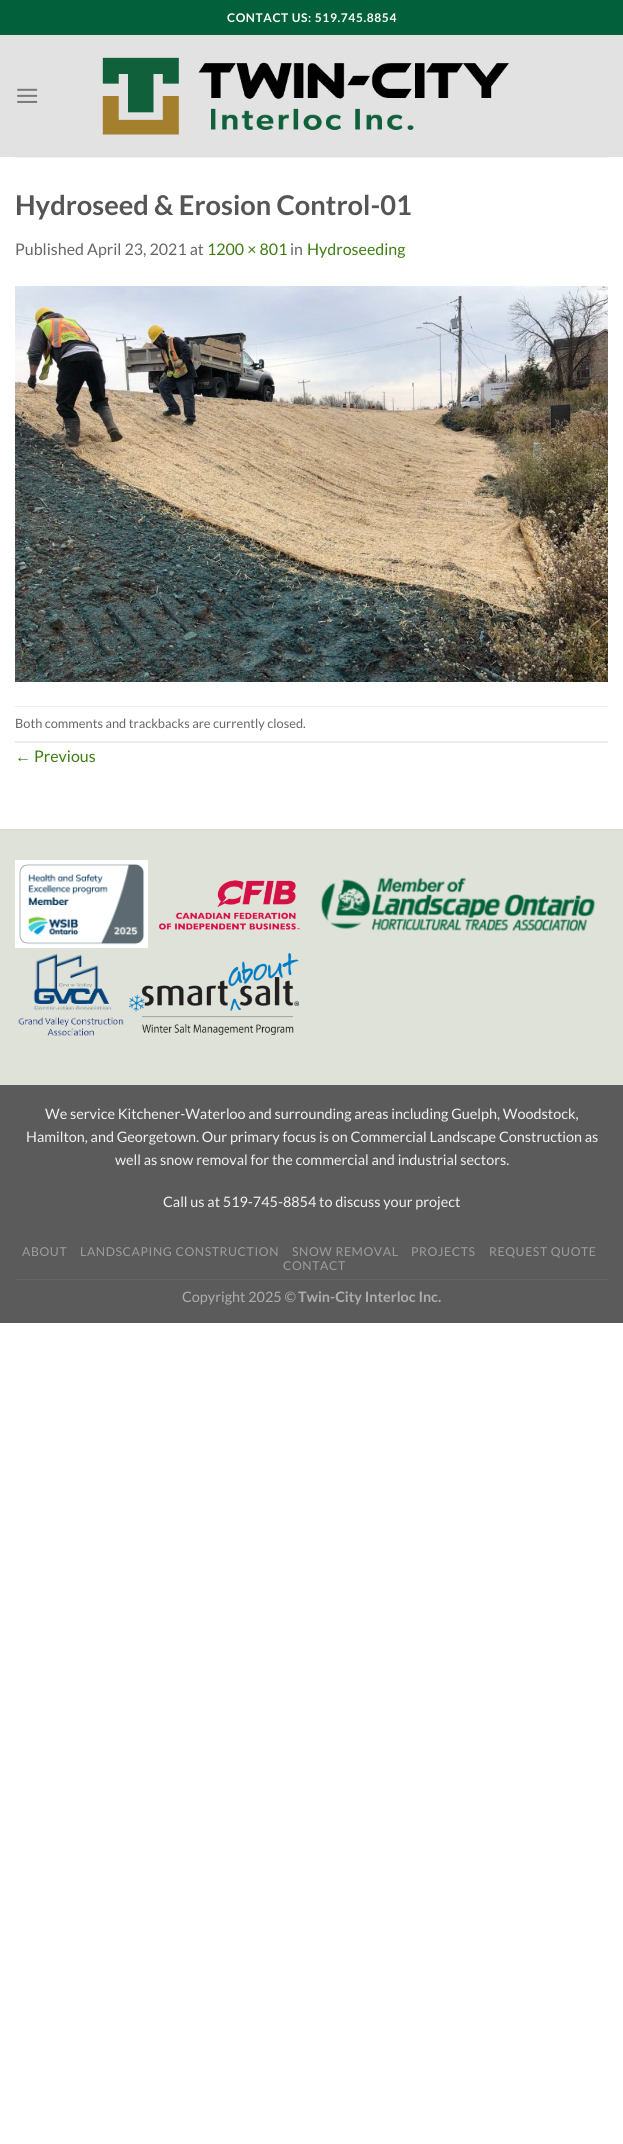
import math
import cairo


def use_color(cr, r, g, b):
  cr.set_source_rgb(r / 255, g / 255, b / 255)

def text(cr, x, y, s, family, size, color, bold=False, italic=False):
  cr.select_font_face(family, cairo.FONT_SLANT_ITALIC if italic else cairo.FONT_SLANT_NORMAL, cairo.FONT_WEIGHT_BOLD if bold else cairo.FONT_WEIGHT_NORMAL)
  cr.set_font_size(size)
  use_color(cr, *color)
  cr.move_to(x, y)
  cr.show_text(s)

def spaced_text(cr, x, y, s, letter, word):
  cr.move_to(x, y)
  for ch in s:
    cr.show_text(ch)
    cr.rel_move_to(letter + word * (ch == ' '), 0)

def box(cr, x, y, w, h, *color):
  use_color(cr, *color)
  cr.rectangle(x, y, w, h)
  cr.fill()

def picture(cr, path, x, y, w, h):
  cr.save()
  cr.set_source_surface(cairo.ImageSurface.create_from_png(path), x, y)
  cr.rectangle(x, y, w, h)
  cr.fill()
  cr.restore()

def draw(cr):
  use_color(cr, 255, 255, 255)
  cr.paint()
  box(cr, 0, 0, 623, 35, 2, 97, 59)
  box(cr, 0, 35, 623, 122, 226, 226, 226)
  picture(cr, "img_01.png", 17, 88, 21, 15)
  picture(cr, "img_02.png", 102, 57, 408, 78)
  box(cr, 15, 157, 593, 1, 240, 240, 240)
  picture(cr, "img_03.png", 15, 286, 593, 396)
  box(cr, 15, 706, 593, 1, 236, 236, 236)
  box(cr, 15, 741, 593, 2, 236, 236, 236)
  box(cr, 0, 830, 623, 255, 222, 226, 216)
  box(cr, 0, 829, 623, 1, 211, 215, 205)
  picture(cr, "img_04.png", 15, 860, 133, 88)
  picture(cr, "img_05.png", 159, 880, 141, 50)
  picture(cr, "img_06.png", 320, 877, 276, 55)
  picture(cr, "img_07.png", 18, 953, 106, 83)
  picture(cr, "img_08.png", 129, 953, 170, 82)
  box(cr, 0, 1085, 623, 238, 91, 91, 91)
  box(cr, 15, 1279, 593, 1, 101, 101, 101)
  cr.select_font_face("Lato", cairo.FONT_SLANT_NORMAL, cairo.FONT_WEIGHT_BOLD)
  cr.set_font_size(12)
  use_color(cr, 255, 255, 255)
  spaced_text(cr, 227, 22, "CONTACT US: 519.745.8854", 0.6, 0)
  text(cr, 15, 215, "Hydroseed & Erosion Control-01", "Lato", 27.25, (85, 85, 85), bold=True)
  text(cr, 15, 255, "Published April 23, 2021 at", "Lato", 16, (102, 102, 102))
  text(cr, 207, 255, "1200 × 801", "Lato", 16, (62, 125, 17))
  text(cr, 290, 255, "in", "Lato", 16, (102, 102, 102))
  text(cr, 307, 255, "Hydroseeding", "Lato", 16, (62, 125, 17))
  text(cr, 15, 728, "Both comments and trackbacks are currently closed.", "Lato", 12.8, (102, 102, 102))
  text(cr, 15, 762, "←", "Liberation Sans", 16, (62, 125, 17))
  text(cr, 34, 762, "Previous", "Lato", 16, (62, 125, 17))
  text(cr, 45, 1119, "We service Kitchener-Waterloo and surrounding areas including Guelph, Woodstock,", "Lato", 14.4, (241, 241, 241))
  text(cr, 26, 1142, "Hamilton, and Georgetown. Our primary focus is on Commercial Landscape Construction as", "Lato", 14.4, (241, 241, 241))
  text(cr, 115, 1165, "well as snow removal for the commercial and industrial sectors.", "Lato", 14.4, (241, 241, 241))
  text(cr, 163, 1207, "Call us at 519-745-8854 to discuss your project", "Lato", 14.4, (241, 241, 241))
  cr.set_font_size(12.25)
  use_color(cr, 157, 157, 157)
  spaced_text(cr, 22, 1256, "ABOUT", 0.6, 0)
  spaced_text(cr, 80, 1256, "LANDSCAPING CONSTRUCTION", 0.6, 0)
  spaced_text(cr, 292, 1256, "SNOW REMOVAL", 0.6, 0)
  spaced_text(cr, 411, 1256, "PROJECTS", 0.6, 0)
  spaced_text(cr, 489, 1256, "REQUEST QUOTE", 0.6, 0)
  spaced_text(cr, 283, 1270, "CONTACT", 0.6, 0)
  text(cr, 182, 1302, "Copyright 2025 ©", "Lato", 14.4, (173, 173, 173))
  text(cr, 298, 1302, "Twin-City Interloc Inc.", "Lato", 14.4, (173, 173, 173), bold=True)


surface = cairo.ImageSurface(cairo.FORMAT_RGB24, 623, 2144)
cr = cairo.Context(surface)
options = cairo.FontOptions()
options.set_hint_metrics(cairo.HINT_METRICS_OFF)
options.set_hint_style(cairo.HINT_STYLE_NONE)
cr.set_font_options(options)
cr.set_miter_limit(4)
draw(cr)
surface.write_to_png("out.png")
